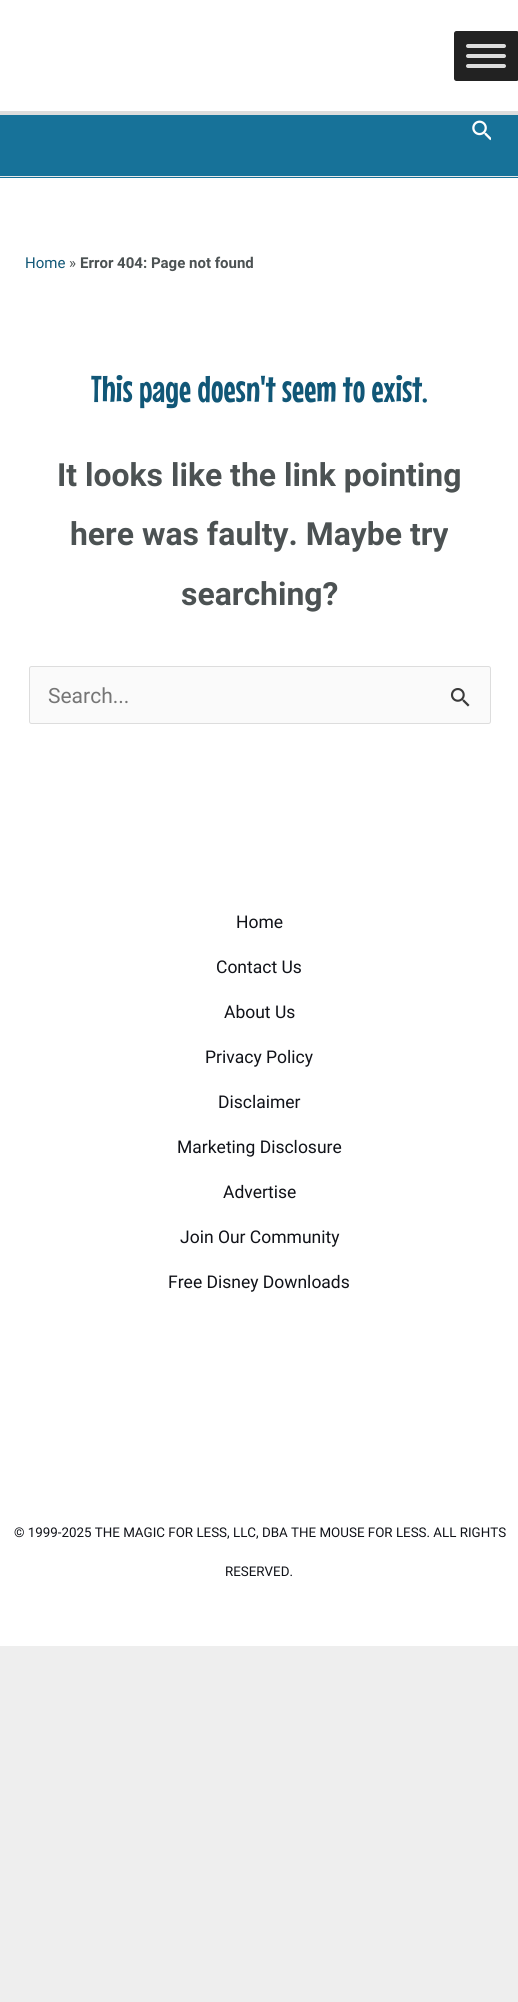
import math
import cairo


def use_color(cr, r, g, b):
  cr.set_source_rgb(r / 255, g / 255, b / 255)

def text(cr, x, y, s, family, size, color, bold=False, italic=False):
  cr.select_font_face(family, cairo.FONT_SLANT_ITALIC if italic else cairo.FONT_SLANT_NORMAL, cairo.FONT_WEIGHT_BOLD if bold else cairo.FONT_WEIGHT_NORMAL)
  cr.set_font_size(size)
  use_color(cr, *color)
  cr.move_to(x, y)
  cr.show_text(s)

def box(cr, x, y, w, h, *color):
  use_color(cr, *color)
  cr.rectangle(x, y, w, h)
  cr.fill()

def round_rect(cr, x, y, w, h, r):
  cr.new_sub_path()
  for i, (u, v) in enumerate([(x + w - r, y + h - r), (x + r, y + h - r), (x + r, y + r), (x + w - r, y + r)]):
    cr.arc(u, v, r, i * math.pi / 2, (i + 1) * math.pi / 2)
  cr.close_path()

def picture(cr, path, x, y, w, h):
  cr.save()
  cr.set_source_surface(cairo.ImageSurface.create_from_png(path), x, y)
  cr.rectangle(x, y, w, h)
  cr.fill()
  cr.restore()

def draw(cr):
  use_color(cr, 255, 255, 255)
  cr.paint()
  box(cr, 0, 111, 518, 4, 221, 221, 221)
  use_color(cr, 34, 34, 34)
  round_rect(cr, 454, 31, 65, 50, 2.5)
  cr.fill()
  use_color(cr, 221, 221, 221)
  round_rect(cr, 466, 44, 40, 4, 2)
  cr.fill()
  round_rect(cr, 466, 54, 40, 4, 2)
  cr.fill()
  round_rect(cr, 466, 64, 40, 4, 2)
  cr.fill()
  box(cr, 0, 115, 518, 63, 23, 114, 153)
  box(cr, 0, 176, 518, 1, 234, 234, 234)
  picture(cr, "img_01.png", 472, 120, 19, 21)
  use_color(cr, 250, 250, 250)
  round_rect(cr, 29.5, 666.5, 461, 57, 2)
  cr.fill_preserve()
  use_color(cr, 221, 221, 221)
  cr.set_line_width(1)
  cr.stroke()
  picture(cr, "img_02.png", 450, 688, 20, 19)
  box(cr, 0, 1646, 518, 356, 238, 238, 238)
  text(cr, 25, 268, "Home", "Roboto", 15, (17, 87, 119))
  text(cr, 69, 268, "»", "Roboto", 15, (76, 82, 83))
  text(cr, 80, 268, "Error 404: Page not found", "Roboto", 15, (76, 82, 83), bold=True)
  text(cr, 91, 402, "This page doesn't seem to exist.", "Mouse Memoirs", 37.5, (17, 87, 119))
  text(cr, 57, 486, "It looks like the link pointing", "Roboto", 31.9, (76, 82, 83), bold=True)
  text(cr, 70, 545, "here was faulty. Maybe try", "Roboto", 31.9, (76, 82, 83), bold=True)
  text(cr, 181, 605, "searching?", "Roboto", 31.9, (76, 82, 83), bold=True)
  text(cr, 48, 703, "Search...", "Roboto", 21, (117, 117, 117))
  text(cr, 236, 928, "Home", "Roboto", 17.5, (16, 18, 24))
  text(cr, 216, 973, "Contact Us", "Roboto", 17.5, (16, 18, 24))
  text(cr, 224, 1018, "About Us", "Roboto", 17.5, (16, 18, 24))
  text(cr, 205, 1063, "Privacy Policy", "Roboto", 17.5, (16, 18, 24))
  text(cr, 218, 1108, "Disclaimer", "Roboto", 17.5, (16, 18, 24))
  text(cr, 177, 1153, "Marketing Disclosure", "Roboto", 17.5, (16, 18, 24))
  text(cr, 223, 1198, "Advertise", "Roboto", 17.5, (16, 18, 24))
  text(cr, 180, 1243, "Join Our Community", "Roboto", 17.5, (16, 18, 24))
  text(cr, 168, 1288, "Free Disney Downloads", "Roboto", 17.5, (16, 18, 24))
  text(cr, 14, 1537, "© 1999-2025 THE MAGIC FOR LESS, LLC, DBA THE MOUSE FOR LESS. ALL RIGHTS", "Roboto", 13.35, (16, 18, 24))
  text(cr, 225, 1576, "RESERVED.", "Roboto", 13.35, (16, 18, 24))


surface = cairo.ImageSurface(cairo.FORMAT_RGB24, 518, 2002)
cr = cairo.Context(surface)
options = cairo.FontOptions()
options.set_hint_metrics(cairo.HINT_METRICS_OFF)
options.set_hint_style(cairo.HINT_STYLE_NONE)
cr.set_font_options(options)
cr.set_miter_limit(4)
draw(cr)
surface.write_to_png("out.png")
